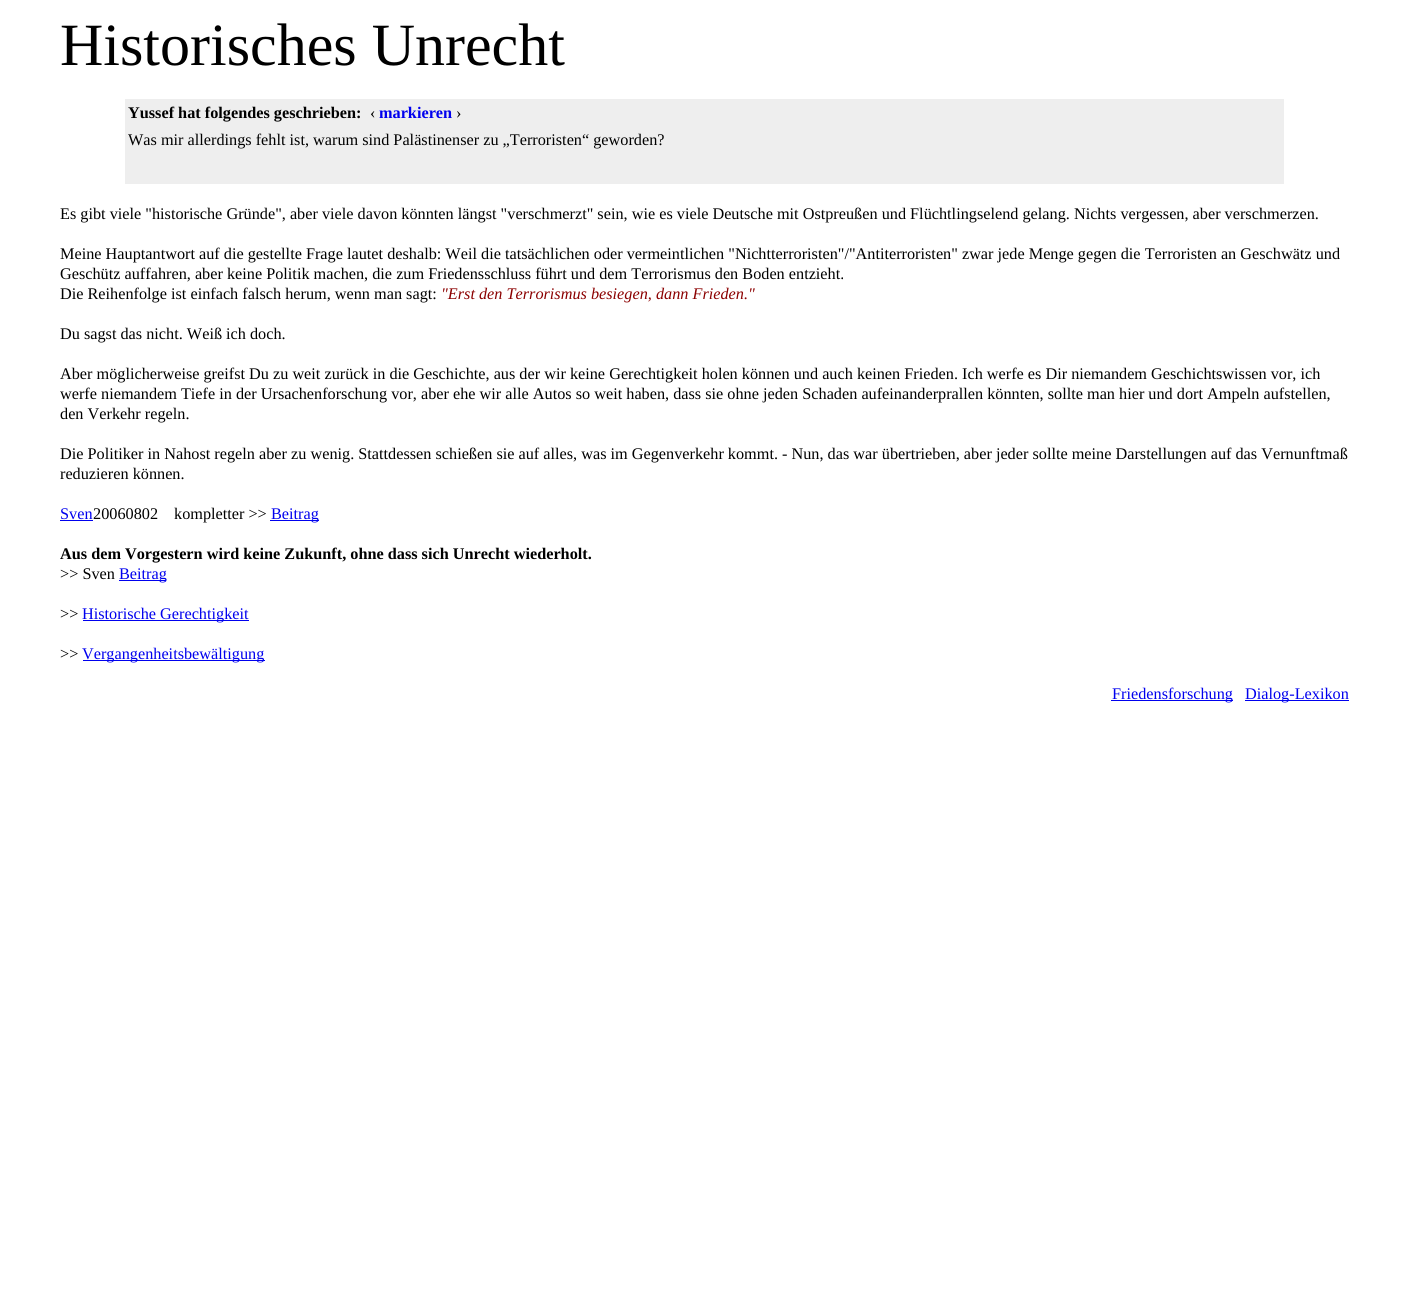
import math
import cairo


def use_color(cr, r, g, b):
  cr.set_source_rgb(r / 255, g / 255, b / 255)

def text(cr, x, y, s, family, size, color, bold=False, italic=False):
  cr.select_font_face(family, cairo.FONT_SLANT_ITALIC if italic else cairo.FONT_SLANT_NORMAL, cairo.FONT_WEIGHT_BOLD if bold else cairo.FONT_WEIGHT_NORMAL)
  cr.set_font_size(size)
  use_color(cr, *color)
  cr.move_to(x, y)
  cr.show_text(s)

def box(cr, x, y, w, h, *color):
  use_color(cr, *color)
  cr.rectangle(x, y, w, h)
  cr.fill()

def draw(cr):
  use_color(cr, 255, 255, 255)
  cr.paint()
  box(cr, 125, 99, 1159, 85, 238, 238, 238)
  box(cr, 60, 520, 33, 1, 0, 0, 238)
  box(cr, 270, 520, 49, 1, 0, 0, 238)
  box(cr, 119, 580, 47, 1, 0, 0, 238)
  box(cr, 83, 620, 166, 1, 0, 0, 238)
  box(cr, 83, 660, 182, 1, 0, 0, 238)
  box(cr, 1111, 700, 122, 1, 0, 0, 238)
  box(cr, 1245, 700, 104, 1, 0, 0, 238)
  text(cr, 60, 65, "Historisches Unrecht", "Liberation Serif", 60, (0, 0, 0))
  text(cr, 128, 118, "Yussef hat folgendes geschrieben:", "Liberation Serif", 16.25, (0, 0, 0), bold=True)
  text(cr, 370, 118, "‹", "Liberation Serif", 16.25, (0, 0, 0))
  text(cr, 379, 118, "markieren", "Liberation Serif", 16.25, (0, 0, 238), bold=True)
  text(cr, 456, 118, "›", "Liberation Serif", 16.25, (0, 0, 0))
  text(cr, 128, 145, "Was mir allerdings fehlt ist, warum sind Palästinenser zu „Terroristen“ geworden?", "Liberation Serif", 16.25, (0, 0, 0))
  text(cr, 60, 219, "Es gibt viele \"historische Gründe\", aber viele davon könnten längst \"verschmerzt\" sein, wie es viele Deutsche mit Ostpreußen und Flüchtlingselend gelang. Nichts vergessen, aber verschmerzen.", "Liberation Serif", 16.25, (0, 0, 0))
  text(cr, 60, 259, "Meine Hauptantwort auf die gestellte Frage lautet deshalb: Weil die tatsächlichen oder vermeintlichen \"Nichtterroristen\"/\"Antiterroristen\" zwar jede Menge gegen die Terroristen an Geschwätz und", "Liberation Serif", 16.25, (0, 0, 0))
  text(cr, 60, 279, "Geschütz auffahren, aber keine Politik machen, die zum Friedensschluss führt und dem Terrorismus den Boden entzieht.", "Liberation Serif", 16.25, (0, 0, 0))
  text(cr, 60, 299, "Die Reihenfolge ist einfach falsch herum, wenn man sagt:", "Liberation Serif", 16.25, (0, 0, 0))
  text(cr, 441, 299, "\"Erst den Terrorismus besiegen, dann Frieden.\"", "Liberation Serif", 16.25, (139, 0, 0), italic=True)
  text(cr, 60, 339, "Du sagst das nicht. Weiß ich doch.", "Liberation Serif", 16.25, (0, 0, 0))
  text(cr, 60, 379, "Aber möglicherweise greifst Du zu weit zurück in die Geschichte, aus der wir keine Gerechtigkeit holen können und auch keinen Frieden. Ich werfe es Dir niemandem Geschichtswissen vor, ich", "Liberation Serif", 16.25, (0, 0, 0))
  text(cr, 60, 399, "werfe niemandem Tiefe in der Ursachenforschung vor, aber ehe wir alle Autos so weit haben, dass sie ohne jeden Schaden aufeinanderprallen könnten, sollte man hier und dort Ampeln aufstellen,", "Liberation Serif", 16.25, (0, 0, 0))
  text(cr, 60, 419, "den Verkehr regeln.", "Liberation Serif", 16.25, (0, 0, 0))
  text(cr, 60, 459, "Die Politiker in Nahost regeln aber zu wenig. Stattdessen schießen sie auf alles, was im Gegenverkehr kommt. - Nun, das war übertrieben, aber jeder sollte meine Darstellungen auf das Vernunftmaß", "Liberation Serif", 16.25, (0, 0, 0))
  text(cr, 60, 479, "reduzieren können.", "Liberation Serif", 16.25, (0, 0, 0))
  text(cr, 60, 519, "Sven", "Liberation Serif", 16.25, (0, 0, 238))
  text(cr, 93, 519, "20060802", "Liberation Serif", 16.25, (0, 0, 0))
  text(cr, 174, 519, "kompletter >>", "Liberation Serif", 16.25, (0, 0, 0))
  text(cr, 271, 519, "Beitrag", "Liberation Serif", 16.25, (0, 0, 238))
  text(cr, 60, 559, "Aus dem Vorgestern wird keine Zukunft, ohne dass sich Unrecht wiederholt.", "Liberation Serif", 16.25, (0, 0, 0), bold=True)
  text(cr, 60, 579, ">> Sven", "Liberation Serif", 16.25, (0, 0, 0))
  text(cr, 119, 579, "Beitrag", "Liberation Serif", 16.25, (0, 0, 238))
  text(cr, 60, 619, ">>", "Liberation Serif", 16.25, (0, 0, 0))
  text(cr, 82, 619, "Historische Gerechtigkeit", "Liberation Serif", 16.25, (0, 0, 238))
  text(cr, 60, 659, ">>", "Liberation Serif", 16.25, (0, 0, 0))
  text(cr, 82, 659, "Vergangenheitsbewältigung", "Liberation Serif", 16.25, (0, 0, 238))
  text(cr, 1112, 699, "Friedensforschung", "Liberation Serif", 16.25, (0, 0, 238))
  text(cr, 1245, 699, "Dialog-Lexikon", "Liberation Serif", 16.25, (0, 0, 238))


surface = cairo.ImageSurface(cairo.FORMAT_RGB24, 1408, 1291)
cr = cairo.Context(surface)
options = cairo.FontOptions()
options.set_hint_metrics(cairo.HINT_METRICS_OFF)
options.set_hint_style(cairo.HINT_STYLE_NONE)
cr.set_font_options(options)
cr.set_miter_limit(4)
draw(cr)
surface.write_to_png("out.png")
